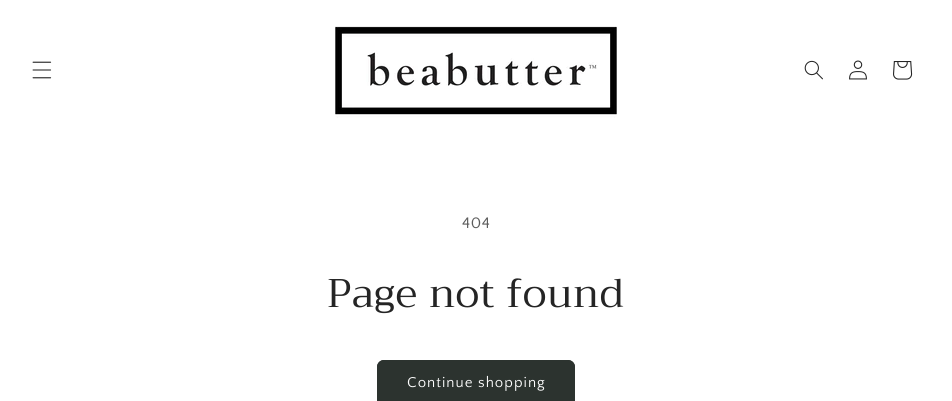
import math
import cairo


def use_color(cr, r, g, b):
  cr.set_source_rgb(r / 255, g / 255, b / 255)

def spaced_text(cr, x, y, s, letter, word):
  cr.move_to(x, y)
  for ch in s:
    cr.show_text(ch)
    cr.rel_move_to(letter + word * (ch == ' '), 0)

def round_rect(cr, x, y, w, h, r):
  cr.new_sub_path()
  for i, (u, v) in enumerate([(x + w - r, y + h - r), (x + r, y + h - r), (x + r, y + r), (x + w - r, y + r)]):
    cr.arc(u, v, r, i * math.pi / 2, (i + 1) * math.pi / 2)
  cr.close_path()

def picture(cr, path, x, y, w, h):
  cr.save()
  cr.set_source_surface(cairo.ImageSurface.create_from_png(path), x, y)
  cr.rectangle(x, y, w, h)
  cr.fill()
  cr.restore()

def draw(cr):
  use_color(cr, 255, 255, 255)
  cr.paint()
  picture(cr, "img_01.png", 32, 61, 20, 18)
  picture(cr, "img_02.png", 335, 26, 282, 92)
  picture(cr, "img_03.png", 804, 60, 19, 20)
  picture(cr, "img_04.png", 849, 60, 18, 20)
  picture(cr, "img_05.png", 893, 61, 20, 19)
  use_color(cr, 44, 51, 47)
  round_rect(cr, 377, 360, 198, 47, 7)
  cr.fill()
  round_rect(cr, 377.5, 360.5, 197, 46, 6.5)
  cr.set_line_width(1)
  cr.stroke()
  cr.select_font_face("Quattrocento Sans")
  cr.set_font_size(16)
  use_color(cr, 92, 92, 92)
  spaced_text(cr, 462, 228, "404", 0.6, 0)
  cr.select_font_face("Trirong")
  cr.set_font_size(40)
  use_color(cr, 37, 37, 37)
  spaced_text(cr, 327, 307, "Page not found", 0.6, 0)
  cr.select_font_face("Quattrocento Sans")
  cr.set_font_size(15)
  use_color(cr, 255, 255, 255)
  spaced_text(cr, 407, 387, "Continue shopping", 1, 0)


surface = cairo.ImageSurface(cairo.FORMAT_RGB24, 952, 401)
cr = cairo.Context(surface)
options = cairo.FontOptions()
options.set_hint_metrics(cairo.HINT_METRICS_OFF)
options.set_hint_style(cairo.HINT_STYLE_NONE)
cr.set_font_options(options)
cr.set_miter_limit(4)
draw(cr)
surface.write_to_png("out.png")
